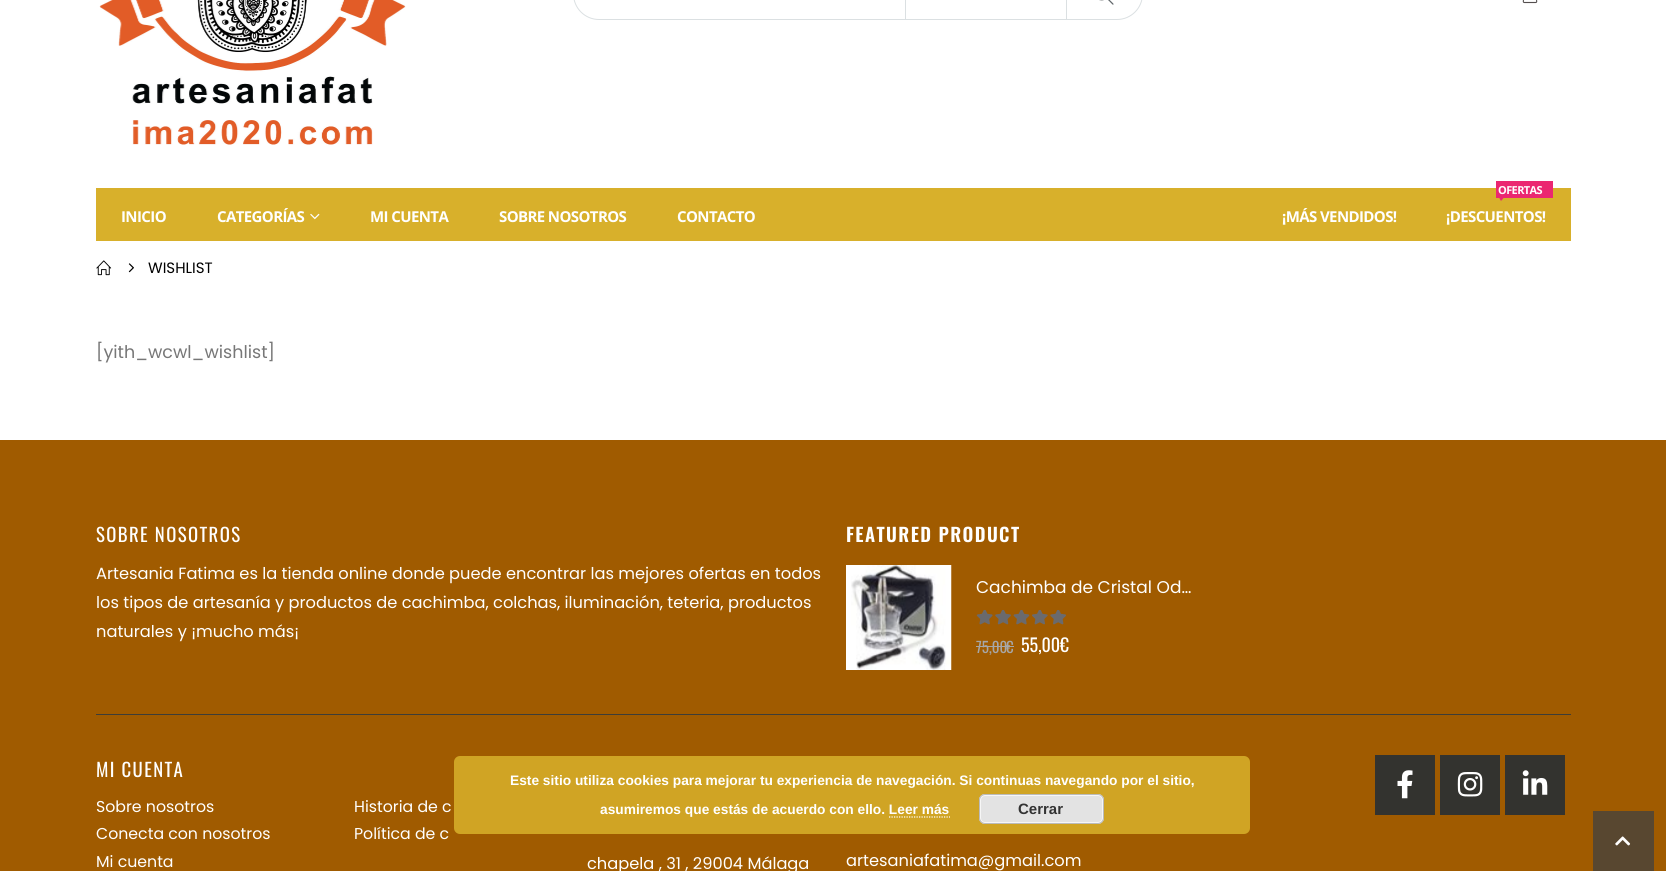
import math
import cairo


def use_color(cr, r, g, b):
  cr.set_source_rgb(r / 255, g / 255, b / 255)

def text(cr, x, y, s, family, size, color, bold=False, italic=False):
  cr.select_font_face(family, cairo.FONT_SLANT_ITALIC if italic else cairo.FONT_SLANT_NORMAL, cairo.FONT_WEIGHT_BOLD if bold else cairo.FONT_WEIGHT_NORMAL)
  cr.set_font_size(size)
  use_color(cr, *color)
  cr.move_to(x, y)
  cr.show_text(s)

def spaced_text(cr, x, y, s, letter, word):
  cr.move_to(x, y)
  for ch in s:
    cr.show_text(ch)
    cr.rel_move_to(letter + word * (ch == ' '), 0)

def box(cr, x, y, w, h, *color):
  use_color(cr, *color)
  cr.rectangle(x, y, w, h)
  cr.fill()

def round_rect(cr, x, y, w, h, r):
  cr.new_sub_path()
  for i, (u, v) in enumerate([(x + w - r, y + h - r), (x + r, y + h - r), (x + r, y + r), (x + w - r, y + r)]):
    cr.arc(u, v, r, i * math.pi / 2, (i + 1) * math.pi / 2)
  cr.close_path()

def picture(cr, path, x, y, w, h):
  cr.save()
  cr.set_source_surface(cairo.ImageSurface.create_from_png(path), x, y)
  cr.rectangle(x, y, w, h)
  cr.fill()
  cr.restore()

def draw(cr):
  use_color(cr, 255, 255, 255)
  cr.paint()
  picture(cr, "img_01.png", 99, 0, 307, 145)
  round_rect(cr, 573.5, -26.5, 569, 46, 25.5)
  use_color(cr, 219, 224, 226)
  cr.set_line_width(1)
  cr.stroke()
  box(cr, 905, 0, 1, 19, 219, 224, 226)
  box(cr, 1066, 0, 1, 19, 219, 224, 226)
  picture(cr, "img_02.png", 1099, 0, 15, 5)
  picture(cr, "img_03.png", 1522, 0, 16, 4)
  box(cr, 96, 188, 1475, 53, 216, 176, 43)
  picture(cr, "img_04.png", 310, 213, 10, 7)
  box(cr, 1496, 181, 57, 17, 235, 39, 113)
  cr.new_path()
  cr.move_to(1499, 197.5)
  cr.line_to(1504, 197.5)
  cr.line_to(1501, 201)
  cr.close_path()
  cr.fill()
  picture(cr, "img_05.png", 96, 260, 16, 16)
  picture(cr, "img_06.png", 128, 263, 6, 10)
  box(cr, 0, 440, 1666, 431, 160, 91, 0)
  box(cr, 846, 565, 5, 105, 255, 255, 255)
  picture(cr, "img_07.png", 851, 565, 101, 105)
  picture(cr, "img_08.png", 976, 610, 90, 15)
  box(cr, 976, 646, 30, 1, 167, 167, 167)
  box(cr, 1006, 646, 8, 1, 167, 167, 167)
  box(cr, 96, 714, 1475, 1, 61, 61, 56)
  box(cr, 1375, 755, 60, 60, 51, 51, 47)
  picture(cr, "img_09.png", 1397, 770, 16, 29)
  box(cr, 1440, 755, 60, 60, 51, 51, 47)
  picture(cr, "img_10.png", 1457, 772, 26, 25)
  box(cr, 1505, 755, 60, 60, 51, 51, 47)
  picture(cr, "img_11.png", 1522, 770, 26, 25)
  cr.set_source_rgba(0.847, 0.69, 0.169, 0.85)
  round_rect(cr, 454, 756, 796, 78, 6)
  cr.fill()
  use_color(cr, 227, 227, 227)
  round_rect(cr, 979, 794, 125, 30, 6)
  cr.fill()
  round_rect(cr, 980.5, 795.5, 122, 27, 4.5)
  use_color(cr, 246, 246, 246)
  cr.stroke()
  round_rect(cr, 979.5, 794.5, 124, 29, 5.5)
  use_color(cr, 187, 187, 187)
  cr.stroke()
  cr.new_path()
  cr.move_to(889, 817)
  cr.line_to(950, 817)
  use_color(cr, 255, 255, 255)
  cr.set_line_width(1.2)
  cr.set_dash([1.25, 1.25])
  cr.stroke()
  box(cr, 1593, 811, 61, 60, 88, 71, 48)
  picture(cr, "img_12.png", 1615, 836, 16, 10)
  cr.select_font_face("Open Sans", cairo.FONT_SLANT_NORMAL, cairo.FONT_WEIGHT_BOLD)
  cr.set_font_size(15)
  use_color(cr, 255, 255, 255)
  spaced_text(cr, 121, 222, "INICIO", -0.6, 0)
  spaced_text(cr, 217, 222, "CATEGORÍAS", -0.6, 0)
  spaced_text(cr, 370, 222, "MI CUENTA", -0.6, 0)
  spaced_text(cr, 499, 222, "SOBRE NOSOTROS", -0.6, 0)
  spaced_text(cr, 677, 222, "CONTACTO", -0.6, 0)
  spaced_text(cr, 1282, 222, "¡MÁS VENDIDOS!", -0.6, 0)
  cr.set_font_size(11)
  spaced_text(cr, 1498, 194, "OFERTAS", -0.6, 0)
  cr.set_font_size(15)
  spaced_text(cr, 1446, 222, "¡DESCUENTOS!", -0.6, 0)
  text(cr, 148, 273, "WISHLIST", "Poppins", 15, (0, 0, 0))
  text(cr, 96, 358, "[yith_wcwl_wishlist]", "Poppins", 17.5, (119, 119, 119))
  cr.select_font_face("Oswald")
  cr.set_font_size(18.75)
  use_color(cr, 255, 255, 255)
  spaced_text(cr, 96, 542, "SOBRE NOSOTROS", 1.4, 0)
  text(cr, 96, 579, "Artesania Fatima es la tienda online donde puede encontrar las mejores ofertas en todos", "Poppins", 16.25, (255, 255, 255))
  text(cr, 96, 608, "los tipos de artesanía y productos de cachimba, colchas, iluminación, teteria, productos", "Poppins", 16.25, (255, 255, 255))
  text(cr, 96, 637, "naturales y ¡mucho más¡", "Poppins", 16.25, (255, 255, 255))
  cr.select_font_face("Oswald SemiBold")
  cr.set_font_size(18.75)
  spaced_text(cr, 846, 542, "FEATURED PRODUCT", 1.4, 0)
  text(cr, 976, 593, "Cachimba de Cristal Od…", "Poppins", 17, (255, 255, 255))
  text(cr, 976, 653, "75,00", "Oswald", 15, (167, 167, 167))
  text(cr, 1006, 653, "€", "Oswald", 15, (167, 167, 167))
  text(cr, 1021, 652, "55,00€", "Oswald", 18, (255, 255, 255))
  cr.set_font_size(18.75)
  spaced_text(cr, 96, 777, "MI CUENTA", 1.4, 0)
  text(cr, 96, 812, "Sobre nosotros", "Poppins", 15.75, (255, 255, 255))
  text(cr, 96, 839, "Conecta con nosotros", "Poppins", 15.75, (255, 255, 255))
  text(cr, 96, 867, "Mi cuenta", "Poppins", 15.75, (255, 255, 255))
  text(cr, 354, 812, "Historia de c", "Poppins", 15.75, (255, 255, 255))
  text(cr, 354, 839, "Política de c", "Poppins", 15.75, (255, 255, 255))
  text(cr, 587, 869, "chapela , 31 , 29004 Málaga", "Poppins", 16.25, (255, 255, 255))
  text(cr, 846, 866, "artesaniafatima@gmail.com", "Poppins", 16.25, (255, 255, 255))
  text(cr, 510, 785, "Este sitio utiliza cookies para mejorar tu experiencia de navegación. Si continuas navegando por el sitio,", "Liberation Sans", 13.75, (255, 255, 255), bold=True)
  text(cr, 600, 814, "asumiremos que estás de acuerdo con ello. Leer más", "Liberation Sans", 13.75, (255, 255, 255), bold=True)
  text(cr, 1018, 814, "Cerrar", "Liberation Sans", 15, (51, 51, 51), bold=True)


surface = cairo.ImageSurface(cairo.FORMAT_RGB24, 1666, 871)
cr = cairo.Context(surface)
options = cairo.FontOptions()
options.set_hint_metrics(cairo.HINT_METRICS_OFF)
options.set_hint_style(cairo.HINT_STYLE_NONE)
cr.set_font_options(options)
cr.set_miter_limit(4)
draw(cr)
surface.write_to_png("out.png")
